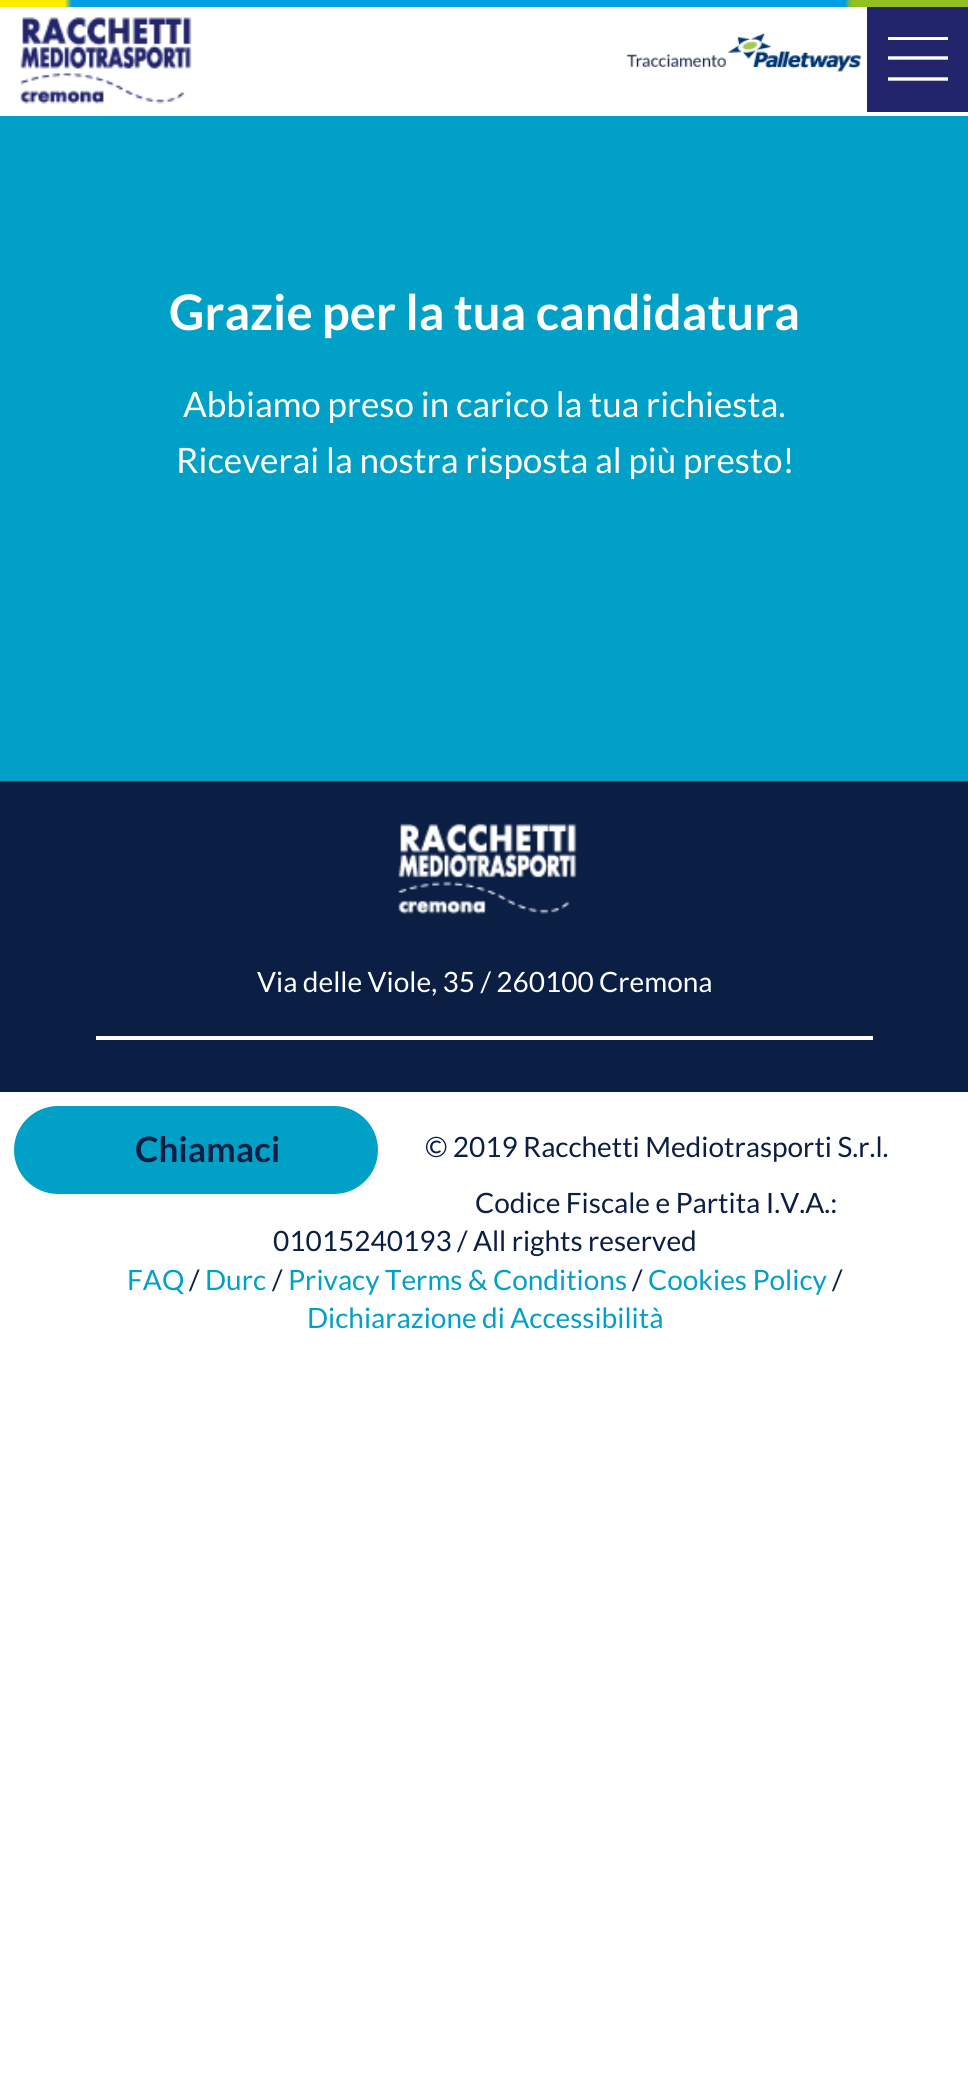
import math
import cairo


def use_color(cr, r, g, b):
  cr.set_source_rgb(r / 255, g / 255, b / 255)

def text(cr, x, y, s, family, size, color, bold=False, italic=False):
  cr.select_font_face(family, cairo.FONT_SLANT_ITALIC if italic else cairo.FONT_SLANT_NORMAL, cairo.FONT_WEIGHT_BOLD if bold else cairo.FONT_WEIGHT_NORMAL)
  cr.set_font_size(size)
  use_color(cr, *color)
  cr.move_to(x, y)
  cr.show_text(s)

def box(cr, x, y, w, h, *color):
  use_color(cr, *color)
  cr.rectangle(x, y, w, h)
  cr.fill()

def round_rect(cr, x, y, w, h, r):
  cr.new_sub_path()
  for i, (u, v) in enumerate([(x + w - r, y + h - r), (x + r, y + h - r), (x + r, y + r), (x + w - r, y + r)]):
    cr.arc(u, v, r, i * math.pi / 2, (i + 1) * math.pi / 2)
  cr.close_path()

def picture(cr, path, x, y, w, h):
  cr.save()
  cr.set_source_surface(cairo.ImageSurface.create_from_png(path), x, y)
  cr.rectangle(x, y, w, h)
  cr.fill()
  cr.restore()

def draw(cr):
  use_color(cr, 255, 255, 255)
  cr.paint()
  picture(cr, "img_01.png", 0, 0, 968, 7)
  picture(cr, "img_02.png", 20, 17, 172, 87)
  picture(cr, "img_03.png", 627, 32, 235, 40)
  box(cr, 867, 7, 101, 105, 35, 37, 108)
  box(cr, 888, 37, 60, 3, 255, 255, 255)
  cr.new_path()
  cr.move_to(888, 58)
  cr.line_to(948, 58)
  cr.move_to(888, 79)
  cr.line_to(948, 79)
  cr.set_line_width(3.4)
  cr.stroke()
  box(cr, 0, 116, 968, 665, 1, 160, 198)
  box(cr, 0, 781, 968, 311, 11, 31, 68)
  picture(cr, "img_04.png", 398, 823, 179, 91)
  box(cr, 96, 1036, 777, 4, 255, 255, 255)
  use_color(cr, 1, 160, 198)
  round_rect(cr, 15, 1107, 362, 86, 43)
  cr.fill_preserve()
  cr.set_line_width(2)
  cr.stroke()
  text(cr, 169, 330, "Grazie per la tua candidatura", "Lato", 49, (255, 255, 255), bold=True)
  text(cr, 183, 417, "Abbiamo preso in carico la tua richiesta.", "Lato", 35, (255, 255, 255))
  text(cr, 176, 473, "Riceverai la nostra risposta al più presto!", "Lato", 35, (255, 255, 255))
  text(cr, 257, 992, "Via delle Viole, 35 / 260100 Cremona", "Lato", 28, (255, 255, 255))
  text(cr, 135, 1162, "Chiamaci", "Lato", 35, (11, 31, 68), bold=True)
  text(cr, 425, 1157, "© 2019 Racchetti Mediotrasporti S.r.l.", "Lato", 28, (11, 31, 68))
  text(cr, 475, 1213, "Codice Fiscale e Partita I.V.A.:", "Lato", 28, (11, 31, 68))
  text(cr, 273, 1251, "01015240193 / All rights reserved", "Lato", 28, (11, 31, 68))
  text(cr, 127, 1290, "FAQ", "Lato", 28, (1, 160, 198))
  text(cr, 189, 1290, "/", "Lato", 28, (11, 31, 68))
  text(cr, 205, 1290, "Durc", "Lato", 28, (1, 160, 198))
  text(cr, 272, 1290, "/", "Lato", 28, (11, 31, 68))
  text(cr, 288, 1290, "Privacy Terms & Conditions", "Lato", 28, (1, 160, 198))
  text(cr, 632, 1290, "/", "Lato", 28, (11, 31, 68))
  text(cr, 648, 1290, "Cookies Policy", "Lato", 28, (1, 160, 198))
  text(cr, 832, 1290, "/", "Lato", 28, (11, 31, 68))
  text(cr, 307, 1328, "Dichiarazione di Accessibilità", "Lato", 28, (1, 160, 198))


surface = cairo.ImageSurface(cairo.FORMAT_RGB24, 968, 2096)
cr = cairo.Context(surface)
options = cairo.FontOptions()
options.set_hint_metrics(cairo.HINT_METRICS_OFF)
options.set_hint_style(cairo.HINT_STYLE_NONE)
cr.set_font_options(options)
cr.set_miter_limit(4)
draw(cr)
surface.write_to_png("out.png")
